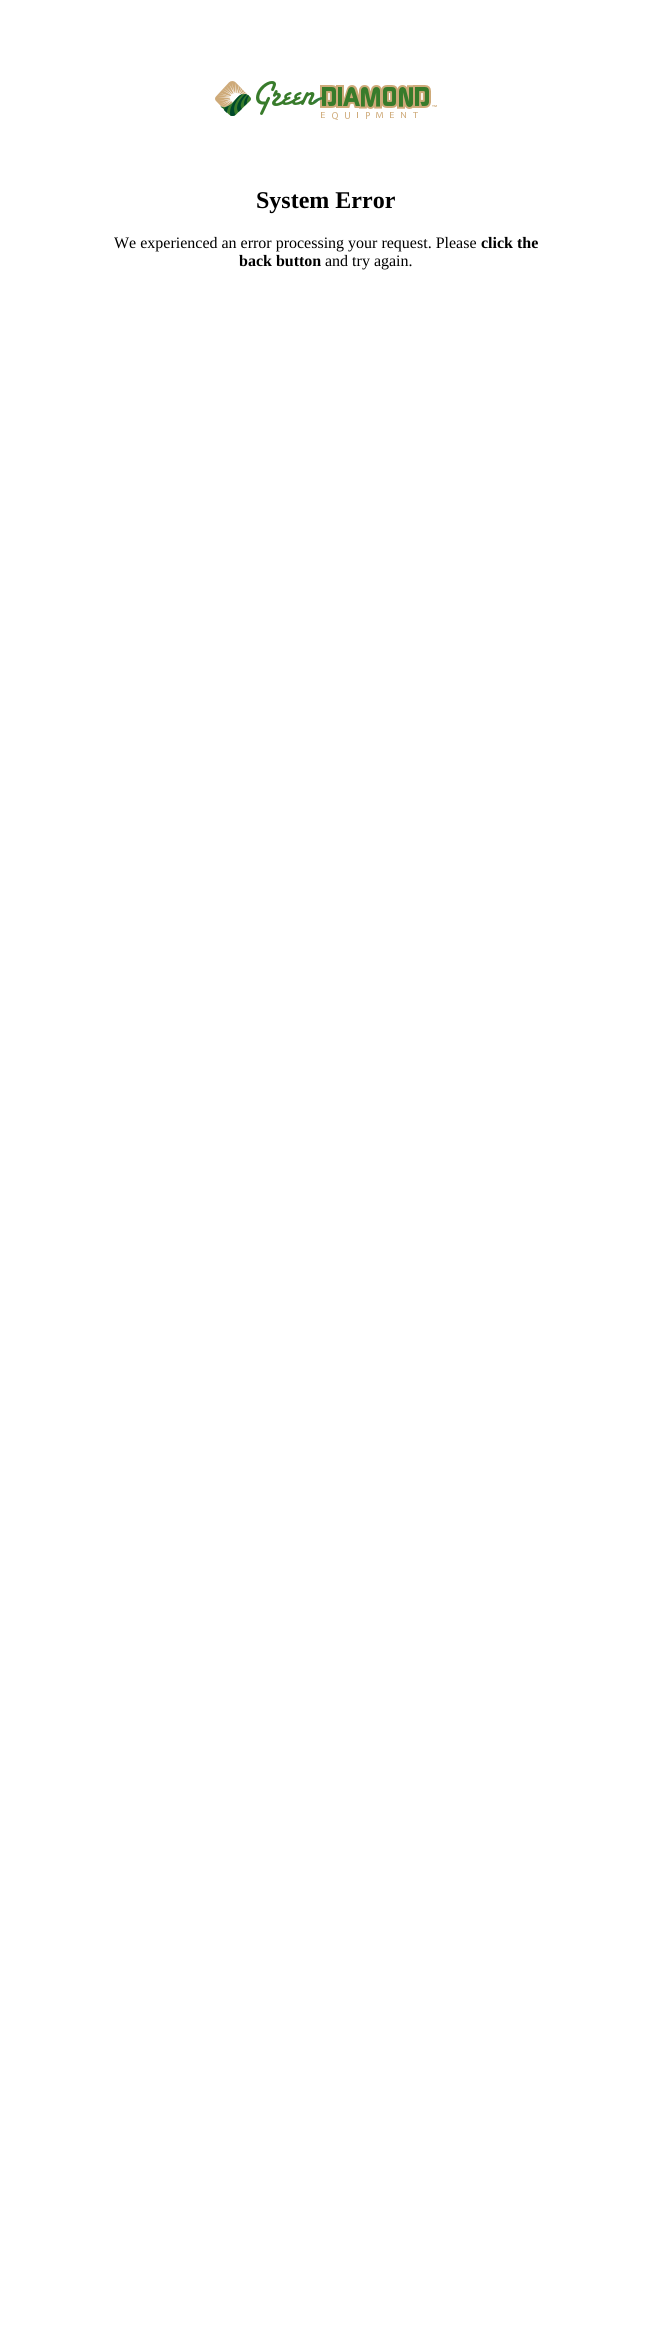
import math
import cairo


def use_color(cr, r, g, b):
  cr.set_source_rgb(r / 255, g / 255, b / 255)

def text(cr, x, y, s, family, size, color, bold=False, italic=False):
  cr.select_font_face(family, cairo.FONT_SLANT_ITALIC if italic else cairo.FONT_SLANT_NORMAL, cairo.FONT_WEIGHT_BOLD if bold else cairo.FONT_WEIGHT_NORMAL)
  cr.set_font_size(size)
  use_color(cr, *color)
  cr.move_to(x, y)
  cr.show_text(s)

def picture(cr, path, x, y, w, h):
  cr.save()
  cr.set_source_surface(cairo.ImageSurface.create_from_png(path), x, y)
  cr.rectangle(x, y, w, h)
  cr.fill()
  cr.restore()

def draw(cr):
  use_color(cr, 255, 255, 255)
  cr.paint()
  picture(cr, "img_01.png", 215, 81, 222, 39)
  text(cr, 256, 208, "System Error", "Liberation Serif", 24, (0, 0, 0), bold=True)
  text(cr, 114, 248, "We experienced an error processing your request. Please", "Liberation Serif", 16, (0, 0, 0))
  text(cr, 481, 248, "click the", "Liberation Serif", 16, (0, 0, 0), bold=True)
  text(cr, 239, 266, "back button", "Liberation Serif", 16, (0, 0, 0), bold=True)
  text(cr, 325, 266, "and try again.", "Liberation Serif", 16, (0, 0, 0))


surface = cairo.ImageSurface(cairo.FORMAT_RGB24, 652, 2329)
cr = cairo.Context(surface)
options = cairo.FontOptions()
options.set_hint_metrics(cairo.HINT_METRICS_OFF)
options.set_hint_style(cairo.HINT_STYLE_NONE)
cr.set_font_options(options)
cr.set_miter_limit(4)
draw(cr)
surface.write_to_png("out.png")
